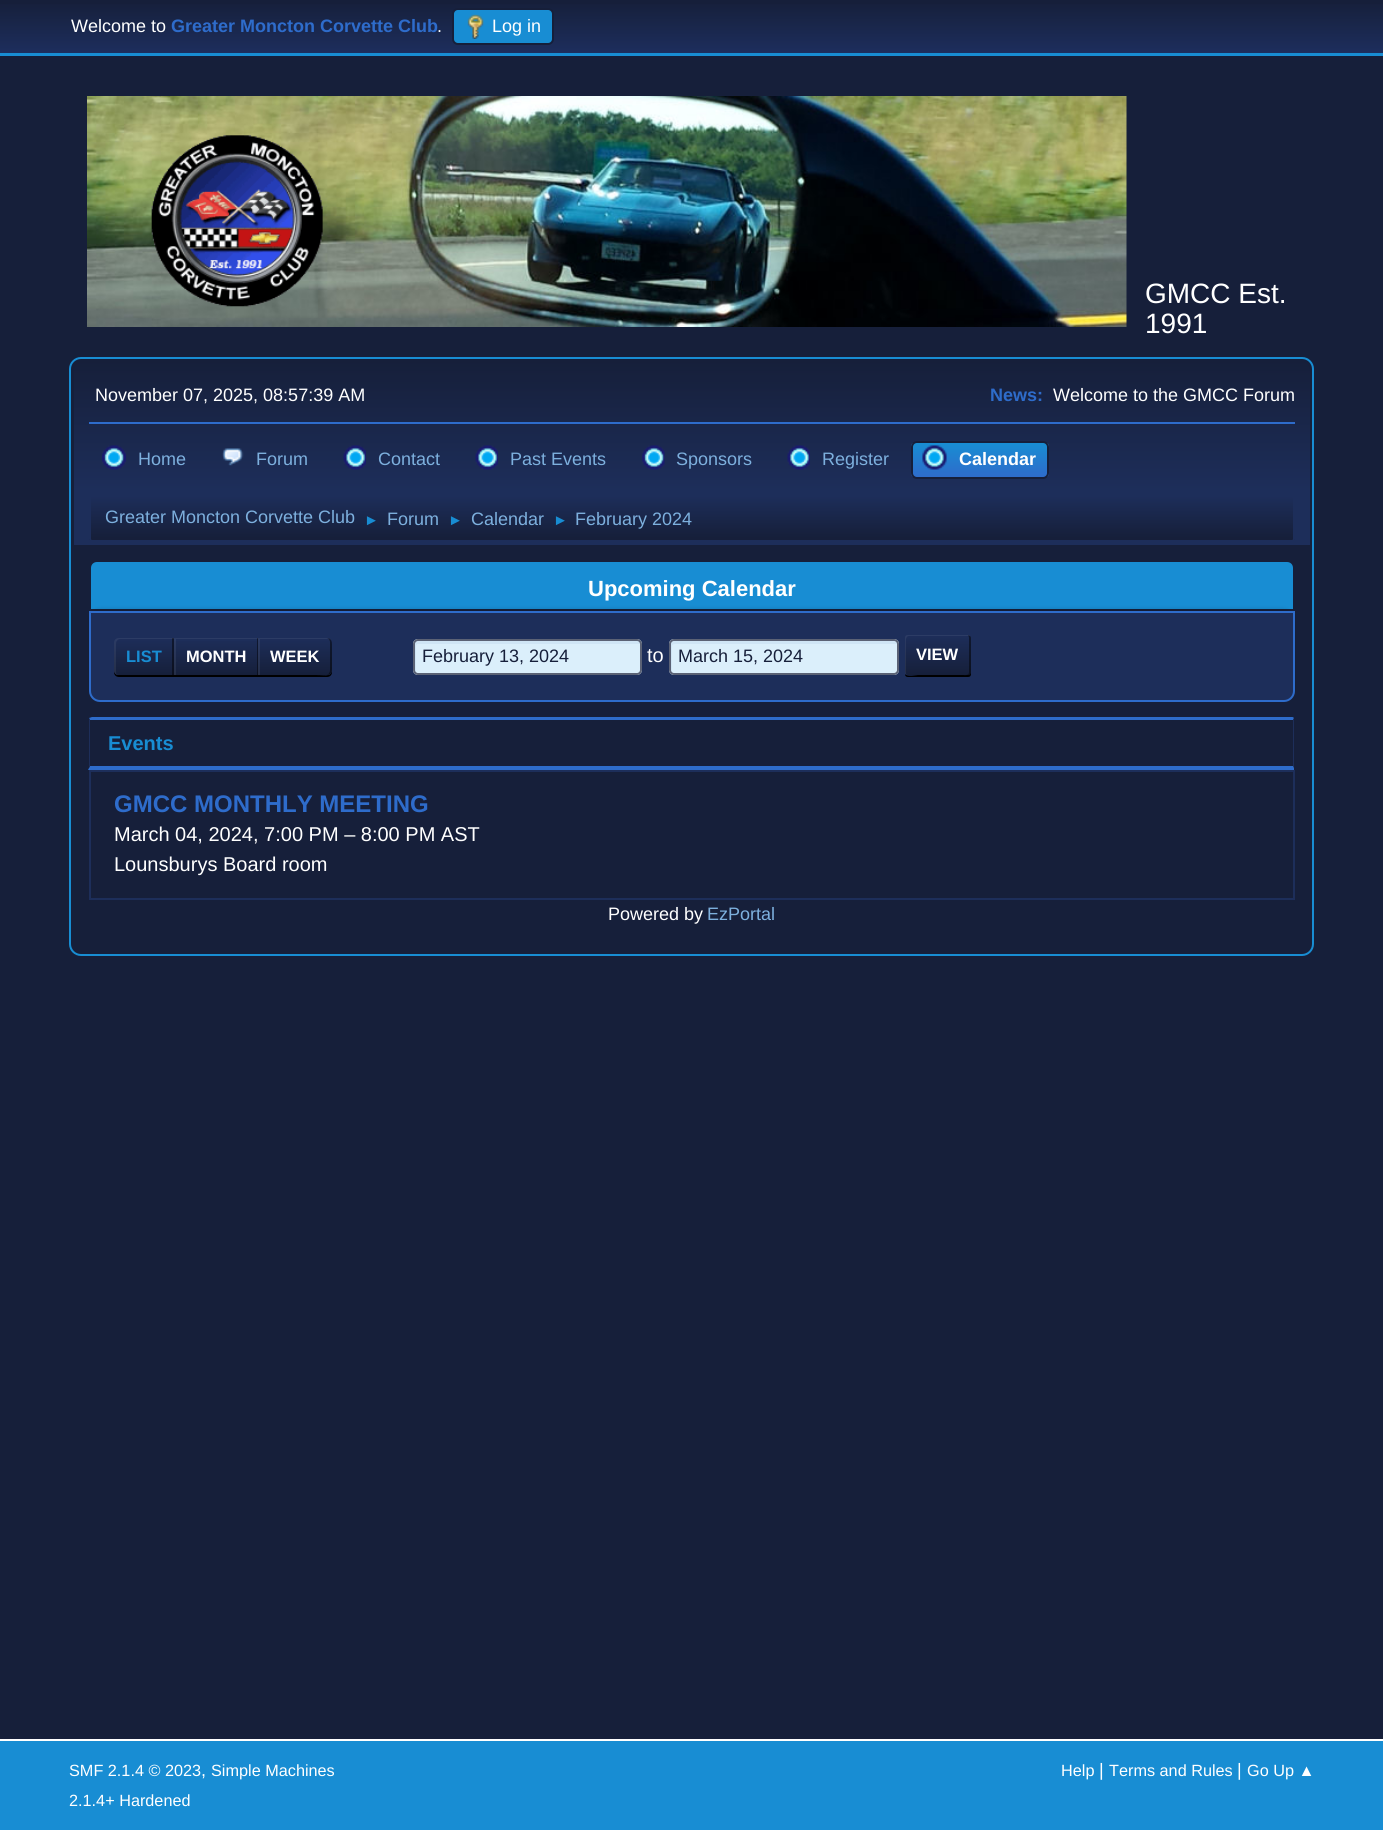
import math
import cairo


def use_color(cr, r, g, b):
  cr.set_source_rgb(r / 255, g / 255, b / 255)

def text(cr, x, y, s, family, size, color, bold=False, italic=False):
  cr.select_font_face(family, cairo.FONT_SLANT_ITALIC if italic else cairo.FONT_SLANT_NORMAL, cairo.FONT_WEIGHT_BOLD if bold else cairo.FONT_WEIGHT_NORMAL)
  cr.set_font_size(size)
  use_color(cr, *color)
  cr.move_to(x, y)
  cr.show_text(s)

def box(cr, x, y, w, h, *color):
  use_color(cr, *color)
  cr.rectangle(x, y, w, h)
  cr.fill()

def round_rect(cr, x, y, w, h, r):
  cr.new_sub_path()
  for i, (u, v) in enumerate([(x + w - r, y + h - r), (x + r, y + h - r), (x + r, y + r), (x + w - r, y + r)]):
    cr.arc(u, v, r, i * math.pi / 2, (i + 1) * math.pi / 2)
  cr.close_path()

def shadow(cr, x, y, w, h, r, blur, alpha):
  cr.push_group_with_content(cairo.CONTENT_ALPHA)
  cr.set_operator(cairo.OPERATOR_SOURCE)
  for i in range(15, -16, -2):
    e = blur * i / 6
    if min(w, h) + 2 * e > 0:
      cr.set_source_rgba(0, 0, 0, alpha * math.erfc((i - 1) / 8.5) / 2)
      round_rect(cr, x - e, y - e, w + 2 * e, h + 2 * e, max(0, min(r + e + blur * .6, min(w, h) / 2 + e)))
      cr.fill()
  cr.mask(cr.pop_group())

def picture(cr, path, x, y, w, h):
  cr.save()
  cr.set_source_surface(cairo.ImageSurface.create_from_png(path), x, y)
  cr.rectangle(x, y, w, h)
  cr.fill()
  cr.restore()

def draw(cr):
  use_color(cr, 22, 31, 58)
  cr.paint()
  gradient = cairo.LinearGradient(692, 0, 692, 53)
  gradient.add_color_stop_rgba(0, 0.086, 0.122, 0.227, 1)
  gradient.add_color_stop_rgba(1, 0.114, 0.18, 0.365, 1)
  cr.set_source(gradient)
  cr.rectangle(0, 4, 1383, 49)
  cr.fill()
  box(cr, 0, 53, 1383, 3, 24, 141, 211)
  round_rect(cr, 453, 9, 100, 35, 5)
  cr.fill_preserve()
  use_color(cr, 22, 31, 58)
  cr.stroke()
  picture(cr, "img_01.png", 467, 14, 17, 25)
  picture(cr, "img_02.png", 87, 96, 1040, 231)
  round_rect(cr, 70, 358, 1243, 597, 11)
  use_color(cr, 24, 141, 211)
  cr.stroke()
  gradient = cairo.LinearGradient(692, 361, 692, 545)
  gradient.add_color_stop_rgba(0, 0.086, 0.122, 0.227, 1)
  gradient.add_color_stop_rgba(0.7, 0.114, 0.18, 0.353, 1)
  cr.set_source(gradient)
  cr.new_path()
  cr.move_to(83, 362)
  cr.line_to(1301, 362)
  cr.curve_to(1306, 362, 1310, 366, 1310, 371)
  cr.line_to(1310, 545)
  cr.line_to(74, 545)
  cr.line_to(74, 371)
  cr.curve_to(74, 366, 78, 362, 83, 362)
  cr.close_path()
  cr.fill()
  box(cr, 89, 422, 1206, 2, 46, 108, 203)
  picture(cr, "img_03.png", 102, 445, 24, 25)
  picture(cr, "img_04.png", 222, 448, 22, 18)
  picture(cr, "img_05.png", 343, 445, 23, 25)
  picture(cr, "img_05.png", 475, 445, 23, 25)
  picture(cr, "img_06.png", 642, 445, 23, 25)
  picture(cr, "img_07.png", 787, 445, 23, 25)
  cr.save()
  round_rect(cr, 911, 441, 138, 38, 6)
  cr.clip()
  gradient = cairo.LinearGradient(980, 443, 980, 477)
  gradient.add_color_stop_rgba(0, 0.094, 0.553, 0.827, 1)
  gradient.add_color_stop_rgba(1, 0.18, 0.424, 0.796, 1)
  cr.set_source(gradient)
  cr.rectangle(911, 443, 138, 34)
  cr.fill()
  cr.restore()
  round_rect(cr, 912, 442, 136, 36, 5)
  use_color(cr, 22, 31, 58)
  cr.stroke()
  picture(cr, "img_08.png", 922, 445, 25, 25)
  cr.save()
  round_rect(cr, 89, 495, 1206, 47, 3)
  cr.clip()
  gradient = cairo.LinearGradient(692, 496, 692, 540)
  gradient.add_color_stop_rgba(0, 0.114, 0.18, 0.353, 1)
  gradient.add_color_stop_rgba(0.95, 0.086, 0.122, 0.227, 1)
  cr.set_source(gradient)
  cr.rectangle(89, 497, 1206, 43)
  cr.fill()
  cr.restore()
  round_rect(cr, 90, 496, 1204, 45, 2)
  use_color(cr, 29, 46, 90)
  cr.stroke()
  use_color(cr, 24, 141, 211)
  cr.new_path()
  cr.move_to(97, 561)
  cr.line_to(1287, 561)
  cr.curve_to(1291, 561, 1294, 564, 1294, 568)
  cr.line_to(1294, 610)
  cr.line_to(90, 610)
  cr.line_to(90, 568)
  cr.curve_to(90, 564, 93, 561, 97, 561)
  cr.close_path()
  cr.fill_preserve()
  use_color(cr, 22, 31, 58)
  cr.stroke()
  use_color(cr, 0, 0, 0)
  shadow(cr, 89, 608, 1206, 91, 11, 1.5, 0.1)
  use_color(cr, 29, 46, 90)
  cr.new_path()
  cr.move_to(90, 612)
  cr.line_to(1294, 612)
  cr.line_to(1294, 691)
  cr.curve_to(1294, 696.5, 1289.5, 701, 1284, 701)
  cr.line_to(100, 701)
  cr.curve_to(94.5, 701, 90, 696.5, 90, 691)
  cr.close_path()
  cr.fill_preserve()
  use_color(cr, 46, 108, 203)
  cr.stroke()
  use_color(cr, 0, 0, 0)
  cr.new_path()
  cr.move_to(114, 670)
  cr.line_to(114, 672)
  cr.curve_to(114, 675, 116, 677, 119, 677)
  cr.line_to(174, 677)
  cr.line_to(174, 675)
  cr.line_to(118, 675)
  cr.curve_to(116, 675, 114, 673, 114, 670)
  cr.close_path()
  cr.fill()
  gradient = cairo.LinearGradient(144, 638, 144, 675)
  gradient.add_color_stop_rgba(0, 0.114, 0.18, 0.353, 1)
  gradient.add_color_stop_rgba(1, 0.086, 0.122, 0.227, 1)
  cr.set_source(gradient)
  cr.new_path()
  cr.move_to(119, 638)
  cr.line_to(174, 638)
  cr.line_to(174, 675)
  cr.line_to(119, 675)
  cr.curve_to(116, 675, 114, 673, 114, 670)
  cr.line_to(114, 643)
  cr.curve_to(114, 640, 116, 638, 119, 638)
  cr.close_path()
  cr.fill()
  gradient = cairo.LinearGradient(144, 638, 144, 675)
  gradient.add_color_stop_rgba(0, 0.059, 0.094, 0.188, 1)
  gradient.add_color_stop_rgba(1, 0.047, 0.063, 0.122, 1)
  cr.set_source(gradient)
  cr.rectangle(172, 638, 2, 37)
  cr.fill()
  cr.set_source_rgba(1, 1, 1, 0.07)
  cr.new_path()
  cr.move_to(120, 639)
  cr.line_to(174, 639)
  cr.line_to(174, 638)
  cr.line_to(119, 638)
  cr.curve_to(116, 638, 114, 640, 114, 643)
  cr.line_to(114, 670)
  cr.curve_to(114, 672, 115, 674, 117, 675)
  cr.curve_to(116, 674, 116, 673, 116, 672)
  cr.line_to(116, 644)
  cr.curve_to(116, 641, 118, 639, 120, 639)
  cr.close_path()
  cr.fill()
  box(cr, 174, 675, 84, 2, 0, 0, 0)
  gradient = cairo.LinearGradient(216, 638, 216, 675)
  gradient.add_color_stop_rgba(0, 0.114, 0.18, 0.353, 1)
  gradient.add_color_stop_rgba(1, 0.086, 0.122, 0.227, 1)
  cr.set_source(gradient)
  cr.rectangle(174, 641, 83, 34)
  cr.fill()
  gradient = cairo.LinearGradient(216, 638, 216, 675)
  gradient.add_color_stop_rgba(0, 0.059, 0.094, 0.188, 1)
  gradient.add_color_stop_rgba(1, 0.047, 0.063, 0.122, 1)
  cr.set_source(gradient)
  cr.rectangle(257, 638, 1, 37)
  cr.fill()
  cr.save()
  cr.rectangle(174, 638, 84, 37)
  cr.clip()
  cr.set_source_rgba(1, 1, 1, 0.07)
  cr.set_fill_rule(cairo.FILL_RULE_EVEN_ODD)
  cr.new_path()
  cr.move_to(90, 612)
  cr.line_to(406, 612)
  cr.line_to(406, 701)
  cr.line_to(99, 701)
  cr.curve_to(94, 701, 90, 697, 90, 692)
  cr.close_path()
  cr.move_to(176, 639)
  cr.line_to(176, 676)
  cr.line_to(260, 676)
  cr.line_to(260, 639)
  cr.close_path()
  cr.fill()
  cr.restore()
  use_color(cr, 0, 0, 0)
  cr.new_path()
  cr.move_to(258, 675)
  cr.line_to(258, 677)
  cr.line_to(327, 677)
  cr.curve_to(330, 677, 332, 675, 332, 672)
  cr.line_to(332, 644)
  cr.line_to(331, 642)
  cr.line_to(332, 666)
  cr.curve_to(332, 678, 328, 675, 316, 675)
  cr.close_path()
  cr.fill()
  gradient = cairo.LinearGradient(295, 638, 295, 675)
  gradient.add_color_stop_rgba(0, 0.114, 0.18, 0.353, 1)
  gradient.add_color_stop_rgba(1, 0.086, 0.122, 0.227, 1)
  cr.set_source(gradient)
  cr.new_path()
  cr.move_to(258, 638)
  cr.line_to(327, 638)
  cr.curve_to(330, 638, 332, 640, 332, 643)
  cr.line_to(332, 670)
  cr.curve_to(332, 673, 330, 675, 327, 675)
  cr.line_to(258, 675)
  cr.close_path()
  cr.fill()
  cr.set_source_rgba(0, 0, 0, 0.47)
  cr.new_path()
  cr.move_to(326, 675)
  cr.curve_to(332.5, 675, 332, 670.5, 332, 665.5)
  cr.line_to(332, 647.5)
  cr.curve_to(332, 642.5, 332.5, 638, 326, 638)
  cr.curve_to(328, 638, 330, 640, 330, 642)
  cr.line_to(330, 670)
  cr.curve_to(330, 673, 328, 675, 326, 675)
  cr.close_path()
  cr.fill()
  cr.set_source_rgba(1, 1, 1, 0.07)
  cr.new_path()
  cr.move_to(260, 639)
  cr.line_to(328, 639)
  cr.line_to(331, 640)
  cr.line_to(328, 638)
  cr.line_to(258, 638)
  cr.line_to(258, 675)
  cr.line_to(260, 675)
  cr.close_path()
  cr.fill()
  use_color(cr, 219, 239, 251)
  round_rect(cr, 413, 639, 229, 36, 5)
  cr.fill()
  use_color(cr, 207, 229, 245)
  cr.new_path()
  cr.move_to(418, 644)
  cr.line_to(639, 644)
  cr.line_to(641, 644)
  cr.curve_to(641, 642, 640, 641, 638, 641)
  cr.line_to(417, 641)
  cr.curve_to(415, 641, 414, 642, 414, 644)
  cr.line_to(414, 671)
  cr.curve_to(414, 672, 415, 673, 416, 674)
  cr.line_to(416, 646)
  cr.curve_to(416, 645, 417, 644, 418, 644)
  cr.close_path()
  cr.fill()
  round_rect(cr, 414, 640, 227, 34, 4)
  use_color(cr, 91, 98, 117)
  cr.stroke()
  use_color(cr, 219, 239, 251)
  round_rect(cr, 669, 639, 230, 36, 5)
  cr.fill()
  use_color(cr, 207, 229, 245)
  cr.new_path()
  cr.move_to(675, 644)
  cr.line_to(897, 644)
  cr.curve_to(897, 642, 896, 641, 894, 641)
  cr.line_to(674, 641)
  cr.curve_to(672, 641, 671, 642, 671, 644)
  cr.line_to(671, 671)
  cr.curve_to(671, 672, 671, 673, 672, 673)
  cr.line_to(672, 646)
  cr.curve_to(672, 645, 673, 644, 675, 644)
  cr.close_path()
  cr.fill()
  round_rect(cr, 670, 640, 228, 34, 4)
  use_color(cr, 91, 98, 117)
  cr.stroke()
  use_color(cr, 0, 0, 0)
  cr.new_path()
  cr.move_to(905, 674)
  cr.curve_to(905, 676, 906, 677, 908, 677)
  cr.line_to(968, 677)
  cr.curve_to(970, 677, 971, 676, 971, 674)
  cr.line_to(971, 639)
  cr.line_to(970, 637)
  cr.line_to(970, 660)
  cr.curve_to(970, 677, 973, 675, 958, 675)
  cr.line_to(918, 675)
  cr.curve_to(916, 675, 907, 677, 905, 674)
  cr.close_path()
  cr.fill()
  gradient = cairo.LinearGradient(938, 635, 938, 675)
  gradient.add_color_stop_rgba(0, 0.114, 0.18, 0.353, 1)
  gradient.add_color_stop_rgba(1, 0.086, 0.122, 0.227, 1)
  cr.set_source(gradient)
  round_rect(cr, 905, 635, 66, 40, 3)
  cr.fill()
  cr.set_source_rgba(0, 0, 0, 0.47)
  cr.new_path()
  cr.move_to(966, 675)
  cr.curve_to(968, 675, 969, 674, 969, 672)
  cr.line_to(969, 638)
  cr.curve_to(969, 637, 968.5, 636, 968, 635)
  cr.curve_to(969.5, 635, 971, 636.5, 971, 638)
  cr.line_to(971, 672)
  cr.curve_to(971, 673.5, 969.5, 675, 968, 675)
  cr.close_path()
  cr.fill()
  cr.set_source_rgba(1, 1, 1, 0.07)
  cr.new_path()
  cr.move_to(909, 636)
  cr.line_to(970, 636)
  cr.curve_to(970, 635, 969, 635, 968, 635)
  cr.line_to(908, 635)
  cr.curve_to(906, 635, 905, 636, 905, 638)
  cr.line_to(905, 672)
  cr.curve_to(905, 673, 905, 674, 906, 674)
  cr.line_to(906, 645)
  cr.curve_to(906, 642, 905, 636, 909, 636)
  cr.close_path()
  cr.fill()
  use_color(cr, 46, 108, 203)
  cr.new_path()
  cr.move_to(92, 717)
  cr.line_to(89, 718)
  cr.line_to(90, 720)
  cr.line_to(1293, 720)
  cr.line_to(1294, 718)
  cr.curve_to(1293, 717, 1293, 717, 1292, 717)
  cr.close_path()
  cr.fill()
  use_color(cr, 29, 46, 90)
  cr.new_path()
  cr.move_to(1294, 718)
  cr.line_to(1294, 768)
  cr.line_to(1293, 766)
  cr.line_to(1293, 720)
  cr.close_path()
  cr.fill()
  use_color(cr, 46, 108, 203)
  cr.new_path()
  cr.move_to(1294, 768)
  cr.line_to(1294, 770)
  cr.line_to(88, 770)
  cr.line_to(90, 766)
  cr.line_to(1293, 766)
  cr.close_path()
  cr.fill()
  cr.save()
  cr.rectangle(89, 560, 1206, 340)
  cr.clip()
  use_color(cr, 29, 46, 90)
  cr.new_path()
  cr.move_to(88, 770)
  cr.line_to(88, 718)
  cr.line_to(89, 718)
  cr.line_to(90, 720)
  cr.line_to(90, 766)
  cr.close_path()
  cr.fill()
  cr.restore()
  cr.rectangle(90, 771, 1204, 128)
  use_color(cr, 29, 46, 90)
  cr.stroke()
  box(cr, 0, 1741, 1383, 89, 24, 141, 211)
  box(cr, 0, 1739, 1383, 2, 255, 255, 255)
  text(cr, 71, 32, "Welcome to", "Liberation Sans", 18, (255, 255, 255))
  text(cr, 171, 32, "Greater Moncton Corvette Club", "Liberation Sans", 18, (46, 108, 203), bold=True)
  text(cr, 437, 32, ".", "Liberation Sans", 18, (255, 255, 255))
  text(cr, 492, 32, "Log in", "Liberation Sans", 18, (255, 255, 255))
  text(cr, 1145, 303, "GMCC Est.", "Liberation Sans", 28, (255, 255, 255))
  text(cr, 1145, 333, "1991", "Liberation Sans", 28, (255, 255, 255))
  text(cr, 95, 401, "November 07, 2025, 08:57:39 AM", "Liberation Sans", 18, (255, 255, 255))
  text(cr, 990, 401, "News:", "Liberation Sans", 18, (46, 108, 203), bold=True)
  text(cr, 1053, 401, "Welcome to the GMCC Forum", "Liberation Sans", 18, (255, 255, 255))
  text(cr, 138, 465, "Home", "Liberation Sans", 18, (125, 176, 222))
  text(cr, 256, 465, "Forum", "Liberation Sans", 18, (125, 176, 222))
  text(cr, 378, 465, "Contact", "Liberation Sans", 18, (125, 176, 222))
  text(cr, 510, 465, "Past Events", "Liberation Sans", 18, (125, 176, 222))
  text(cr, 676, 465, "Sponsors", "Liberation Sans", 18, (125, 176, 222))
  text(cr, 822, 465, "Register", "Liberation Sans", 18, (125, 176, 222))
  text(cr, 959, 465, "Calendar", "Liberation Sans", 18, (255, 255, 255), bold=True)
  text(cr, 105, 523, "Greater Moncton Corvette Club", "Liberation Sans", 18, (125, 176, 222))
  text(cr, 364, 525, "►", "Liberation Sans", 15, (24, 141, 211))
  text(cr, 387, 525, "Forum", "Liberation Sans", 18, (125, 176, 222))
  text(cr, 448, 525, "►", "Liberation Sans", 15, (24, 141, 211))
  text(cr, 471, 525, "Calendar", "Liberation Sans", 18, (125, 176, 222))
  text(cr, 553, 525, "►", "Liberation Sans", 15, (24, 141, 211))
  text(cr, 575, 525, "February 2024", "Liberation Sans", 18, (125, 176, 222))
  text(cr, 588, 596, "Upcoming Calendar", "Liberation Sans", 22, (255, 255, 255), bold=True)
  text(cr, 126, 662, "LIST", "Liberation Sans", 16.5, (24, 141, 211), bold=True)
  text(cr, 186, 662, "MONTH", "Liberation Sans", 16.5, (255, 255, 255), bold=True)
  text(cr, 270, 662, "WEEK", "Liberation Sans", 16.5, (255, 255, 255), bold=True)
  text(cr, 422, 662, "February 13, 2024", "Liberation Sans", 18, (22, 31, 58))
  text(cr, 647, 662, "to", "Liberation Sans", 20, (255, 255, 255))
  text(cr, 678, 662, "March 15, 2024", "Liberation Sans", 18, (22, 31, 58))
  text(cr, 916, 660, "VIEW", "Liberation Sans", 16.5, (255, 255, 255), bold=True)
  text(cr, 108, 750, "Events", "Liberation Sans", 20, (24, 141, 211), bold=True)
  text(cr, 114, 812, "GMCC MONTHLY MEETING", "Liberation Sans", 24, (46, 108, 203), bold=True)
  text(cr, 114, 841, "March 04, 2024, 7:00 PM – 8:00 PM AST", "Liberation Sans", 20, (255, 255, 255))
  text(cr, 114, 871, "Lounsburys Board room", "Liberation Sans", 20, (255, 255, 255))
  text(cr, 608, 920, "Powered by", "Liberation Sans", 18, (255, 255, 255))
  text(cr, 707, 920, "EzPortal", "Liberation Sans", 18, (125, 176, 222))
  text(cr, 69, 1776, "SMF 2.1.4 © 2023", "Liberation Sans", 16.25, (255, 255, 255))
  text(cr, 201, 1776, ",", "Liberation Sans", 18, (255, 255, 255))
  text(cr, 211, 1776, "Simple Machines", "Liberation Sans", 16.25, (255, 255, 255))
  text(cr, 1061, 1776, "Help", "Liberation Sans", 16.25, (255, 255, 255))
  text(cr, 1099, 1776, "|", "Liberation Sans", 18, (255, 255, 255))
  text(cr, 1109, 1776, "Terms and Rules", "Liberation Sans", 16.25, (255, 255, 255))
  text(cr, 1237, 1776, "|", "Liberation Sans", 18, (255, 255, 255))
  text(cr, 1247, 1776, "Go Up ▲", "Liberation Sans", 16.25, (255, 255, 255))
  text(cr, 69, 1806, "2.1.4+ Hardened", "Liberation Sans", 16.25, (255, 255, 255))


surface = cairo.ImageSurface(cairo.FORMAT_RGB24, 1383, 1830)
cr = cairo.Context(surface)
options = cairo.FontOptions()
options.set_hint_metrics(cairo.HINT_METRICS_OFF)
options.set_hint_style(cairo.HINT_STYLE_NONE)
cr.set_font_options(options)
cr.set_miter_limit(4)
draw(cr)
surface.write_to_png("out.png")
